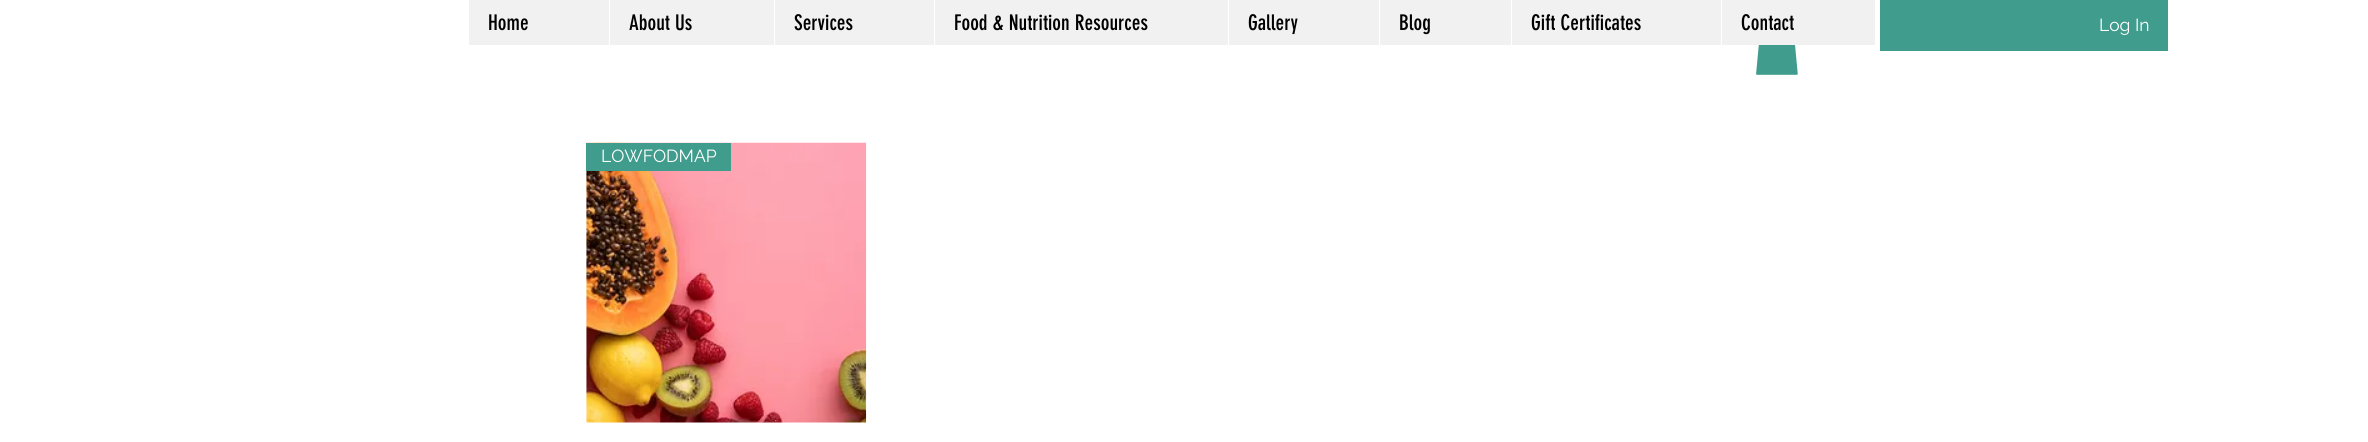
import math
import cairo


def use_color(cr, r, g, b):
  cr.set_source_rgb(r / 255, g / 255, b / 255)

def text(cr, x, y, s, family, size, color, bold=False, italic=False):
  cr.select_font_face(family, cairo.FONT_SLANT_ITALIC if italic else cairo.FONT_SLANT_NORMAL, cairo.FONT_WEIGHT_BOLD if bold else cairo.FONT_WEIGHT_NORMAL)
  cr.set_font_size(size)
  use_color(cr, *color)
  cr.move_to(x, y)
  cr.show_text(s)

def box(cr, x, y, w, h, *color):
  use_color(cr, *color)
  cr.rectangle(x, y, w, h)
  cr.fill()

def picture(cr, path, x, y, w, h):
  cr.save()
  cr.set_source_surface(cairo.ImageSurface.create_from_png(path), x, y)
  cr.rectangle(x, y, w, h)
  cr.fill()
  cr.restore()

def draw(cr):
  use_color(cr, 255, 255, 255)
  cr.paint()
  box(cr, 469, 0, 1406, 45, 241, 241, 241)
  box(cr, 609, 0, 1, 45, 255, 255, 255)
  box(cr, 774, 0, 1, 45, 255, 255, 255)
  box(cr, 934, 0, 1, 45, 255, 255, 255)
  box(cr, 1228, 0, 1, 45, 255, 255, 255)
  box(cr, 1379, 0, 1, 45, 255, 255, 255)
  box(cr, 1511, 0, 1, 45, 255, 255, 255)
  box(cr, 1721, 0, 1, 45, 255, 255, 255)
  box(cr, 1880, 0, 288, 51, 64, 156, 140)
  picture(cr, "img_01.png", 1756, 45, 42, 30)
  picture(cr, "img_02.png", 586, 142, 281, 281)
  box(cr, 586, 143, 145, 28, 64, 156, 140)
  text(cr, 488, 30, "Home", "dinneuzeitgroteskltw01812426", 21.25, (0, 0, 0))
  text(cr, 629, 30, "About Us", "dinneuzeitgroteskltw01812426", 21.25, (0, 0, 0))
  text(cr, 794, 30, "Services", "dinneuzeitgroteskltw01812426", 21.25, (0, 0, 0))
  text(cr, 954, 30, "Food & Nutrition Resources", "dinneuzeitgroteskltw01812426", 21.25, (0, 0, 0))
  text(cr, 1248, 30, "Gallery", "dinneuzeitgroteskltw01812426", 21.25, (0, 0, 0))
  text(cr, 1399, 30, "Blog", "dinneuzeitgroteskltw01812426", 21.25, (0, 0, 0))
  text(cr, 1531, 30, "Gift Certificates", "dinneuzeitgroteskltw01812426", 21.25, (0, 0, 0))
  text(cr, 1741, 30, "Contact", "dinneuzeitgroteskltw01812426", 21.25, (0, 0, 0))
  text(cr, 2099, 31, "Log In", "Raleway", 17.5, (255, 255, 255))
  text(cr, 601, 162, "LOWFODMAP", "Raleway", 17.5, (255, 255, 255))


surface = cairo.ImageSurface(cairo.FORMAT_RGB24, 2368, 442)
cr = cairo.Context(surface)
options = cairo.FontOptions()
options.set_hint_metrics(cairo.HINT_METRICS_OFF)
options.set_hint_style(cairo.HINT_STYLE_NONE)
cr.set_font_options(options)
cr.set_miter_limit(4)
draw(cr)
surface.write_to_png("out.png")
